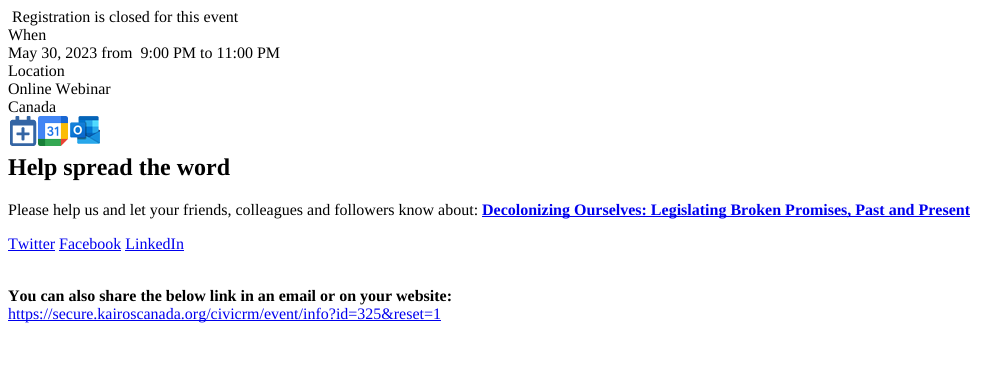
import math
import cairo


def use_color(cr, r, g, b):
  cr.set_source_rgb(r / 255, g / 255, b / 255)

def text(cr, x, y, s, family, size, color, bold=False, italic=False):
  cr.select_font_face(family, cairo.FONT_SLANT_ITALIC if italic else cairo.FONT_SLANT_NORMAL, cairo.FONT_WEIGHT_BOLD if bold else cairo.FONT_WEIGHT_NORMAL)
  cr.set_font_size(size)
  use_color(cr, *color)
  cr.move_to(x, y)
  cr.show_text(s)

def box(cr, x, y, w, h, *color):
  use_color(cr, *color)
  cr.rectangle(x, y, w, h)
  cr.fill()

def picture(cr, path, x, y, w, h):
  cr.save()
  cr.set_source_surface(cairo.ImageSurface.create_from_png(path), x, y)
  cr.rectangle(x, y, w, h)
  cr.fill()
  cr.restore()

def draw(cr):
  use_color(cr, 255, 255, 255)
  cr.paint()
  picture(cr, "img_01.png", 10, 116, 27, 30)
  picture(cr, "img_02.png", 38, 116, 30, 30)
  picture(cr, "img_03.png", 70, 116, 30, 28)
  box(cr, 482, 216, 488, 1, 0, 0, 238)
  box(cr, 8, 250, 47, 1, 0, 0, 238)
  box(cr, 59, 250, 62, 1, 0, 0, 238)
  box(cr, 125, 250, 59, 1, 0, 0, 238)
  box(cr, 8, 320, 433, 1, 0, 0, 238)
  text(cr, 12, 22, "Registration is closed for this event", "Liberation Serif", 16, (0, 0, 0))
  text(cr, 8, 40, "When", "Liberation Serif", 16, (0, 0, 0))
  text(cr, 8, 58, "May 30, 2023 from  9:00 PM to 11:00 PM", "Liberation Serif", 16, (0, 0, 0))
  text(cr, 8, 76, "Location", "Liberation Serif", 16, (0, 0, 0))
  text(cr, 8, 94, "Online Webinar", "Liberation Serif", 16, (0, 0, 0))
  text(cr, 8, 112, "Canada", "Liberation Serif", 16, (0, 0, 0))
  text(cr, 8, 175, "Help spread the word", "Liberation Serif", 24, (0, 0, 0), bold=True)
  text(cr, 8, 215, "Please help us and let your friends, colleagues and followers know about:", "Liberation Serif", 16, (0, 0, 0))
  text(cr, 482, 215, "Decolonizing Ourselves: Legislating Broken Promises, Past and Present", "Liberation Serif", 16, (0, 0, 238), bold=True)
  text(cr, 8, 249, "Twitter Facebook LinkedIn", "Liberation Serif", 16, (0, 0, 238))
  text(cr, 8, 301, "You can also share the below link in an email or on your website:", "Liberation Serif", 16, (0, 0, 0), bold=True)
  text(cr, 8, 319, "https://secure.kairoscanada.org/civicrm/event/info?id=325&reset=1", "Liberation Serif", 16, (0, 0, 238))


surface = cairo.ImageSurface(cairo.FORMAT_RGB24, 1006, 367)
cr = cairo.Context(surface)
options = cairo.FontOptions()
options.set_hint_metrics(cairo.HINT_METRICS_OFF)
options.set_hint_style(cairo.HINT_STYLE_NONE)
cr.set_font_options(options)
cr.set_miter_limit(4)
draw(cr)
surface.write_to_png("out.png")
